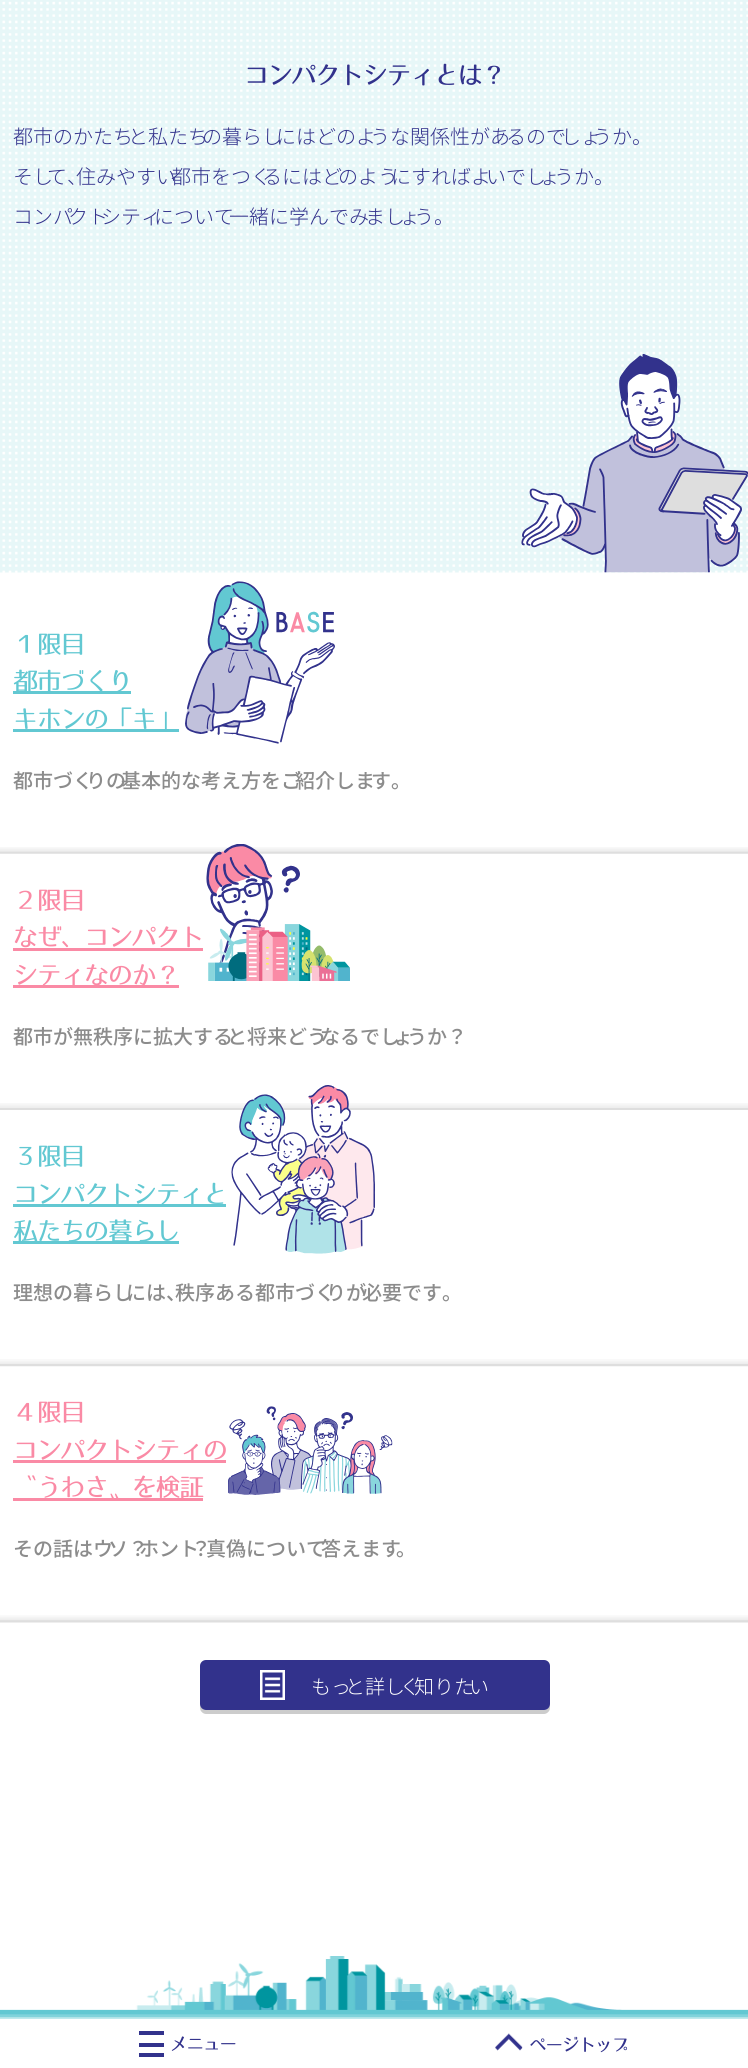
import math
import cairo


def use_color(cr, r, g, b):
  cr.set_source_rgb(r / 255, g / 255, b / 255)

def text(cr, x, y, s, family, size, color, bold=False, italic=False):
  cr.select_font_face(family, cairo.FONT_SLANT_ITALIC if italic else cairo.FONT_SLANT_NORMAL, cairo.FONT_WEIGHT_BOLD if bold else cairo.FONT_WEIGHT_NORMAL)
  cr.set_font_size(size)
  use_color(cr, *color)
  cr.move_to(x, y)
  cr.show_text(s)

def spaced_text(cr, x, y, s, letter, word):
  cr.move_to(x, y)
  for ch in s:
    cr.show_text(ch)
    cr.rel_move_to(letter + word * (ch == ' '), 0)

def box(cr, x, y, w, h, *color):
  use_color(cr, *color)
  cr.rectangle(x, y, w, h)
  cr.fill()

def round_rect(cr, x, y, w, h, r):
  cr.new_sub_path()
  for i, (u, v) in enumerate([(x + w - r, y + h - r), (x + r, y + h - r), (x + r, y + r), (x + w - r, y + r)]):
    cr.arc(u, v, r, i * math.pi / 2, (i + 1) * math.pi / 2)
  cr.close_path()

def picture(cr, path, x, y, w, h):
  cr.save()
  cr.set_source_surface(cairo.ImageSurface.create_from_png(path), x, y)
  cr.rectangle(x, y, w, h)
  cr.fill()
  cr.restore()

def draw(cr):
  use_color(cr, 255, 255, 255)
  cr.paint()
  picture(cr, "img_01.png", 0, 0, 748, 573)
  picture(cr, "img_02.png", 521, 354, 227, 219)
  picture(cr, "img_03.png", 0, 847, 748, 7)
  box(cr, 13, 691, 118, 3, 98, 200, 210)
  box(cr, 13, 729, 166, 3, 98, 200, 210)
  picture(cr, "img_04.png", 185, 581, 150, 163)
  picture(cr, "img_05.png", 0, 1103, 748, 7)
  box(cr, 13, 948, 190, 3, 250, 138, 165)
  box(cr, 13, 985, 166, 3, 250, 138, 165)
  picture(cr, "img_06.png", 206, 844, 144, 137)
  picture(cr, "img_07.png", 0, 1359, 748, 8)
  box(cr, 13, 1204, 213, 3, 98, 200, 210)
  box(cr, 13, 1241, 166, 3, 98, 200, 210)
  picture(cr, "img_08.png", 231, 1085, 144, 169)
  picture(cr, "img_09.png", 0, 1615, 748, 8)
  box(cr, 13, 1460, 213, 3, 250, 138, 165)
  box(cr, 13, 1498, 190, 3, 250, 138, 165)
  picture(cr, "img_10.png", 228, 1406, 165, 89)
  use_color(cr, 204, 204, 204)
  cr.new_path()
  cr.move_to(200, 1704)
  cr.line_to(200, 1708)
  cr.curve_to(200, 1711, 203, 1714, 206, 1714)
  cr.line_to(544, 1714)
  cr.curve_to(547, 1714, 550, 1711, 550, 1708)
  cr.line_to(550, 1704)
  cr.curve_to(550, 1707, 547, 1710, 544, 1710)
  cr.line_to(206, 1710)
  cr.curve_to(203, 1710, 200, 1707, 200, 1704)
  cr.close_path()
  cr.fill()
  use_color(cr, 50, 50, 140)
  round_rect(cr, 200, 1660, 350, 50, 6)
  cr.fill()
  picture(cr, "img_11.png", 260, 1670, 25, 30)
  picture(cr, "img_12.png", 0, 1956, 748, 63)
  box(cr, 139, 2031, 25, 4, 50, 50, 140)
  box(cr, 139, 2053, 25, 4, 50, 50, 140)
  box(cr, 139, 2043, 25, 4, 50, 50, 140)
  picture(cr, "img_13.png", 495, 2033, 28, 18)
  cr.select_font_face("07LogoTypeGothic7")
  cr.set_font_size(25)
  spaced_text(cr, 244, 84, "コンパクトシティとは？", -1.25, 0)
  text(cr, 13, 144, "都市のかたち", "Noto Sans JP Light", 20, (50, 50, 140))
  text(cr, 128, 144, "と私たち", "Noto Sans JP Light", 20, (50, 50, 140))
  text(cr, 202, 144, "の暮らし", "Noto Sans JP Light", 20, (50, 50, 140))
  text(cr, 276, 144, "にはどのよ", "Noto Sans JP Light", 20, (50, 50, 140))
  text(cr, 370, 144, "うな関係性があ", "Noto Sans JP Light", 20, (50, 50, 140))
  text(cr, 506, 144, "るので", "Noto Sans JP Light", 20, (50, 50, 140))
  text(cr, 561, 144, "しょ", "Noto Sans JP Light", 20, (50, 50, 140))
  text(cr, 592, 144, "うか。", "Noto Sans JP Light", 20, (50, 50, 140))
  text(cr, 13, 184, "そし", "Noto Sans JP Light", 20, (50, 50, 140))
  text(cr, 47, 184, "て、", "Noto Sans JP Light", 20, (50, 50, 140))
  text(cr, 76, 184, "住みやすい", "Noto Sans JP Light", 20, (50, 50, 140))
  text(cr, 171, 184, "都市をつく", "Noto Sans JP Light", 20, (50, 50, 140))
  text(cr, 262, 184, "るにはど", "Noto Sans JP Light", 20, (50, 50, 140))
  text(cr, 338, 184, "のよう", "Noto Sans JP Light", 20, (50, 50, 140))
  text(cr, 391, 184, "にすればよ", "Noto Sans JP Light", 20, (50, 50, 140))
  text(cr, 486, 184, "いでし", "Noto Sans JP Light", 20, (50, 50, 140))
  text(cr, 540, 184, "ょ", "Noto Sans JP Light", 20, (50, 50, 140))
  text(cr, 554, 184, "うか。", "Noto Sans JP Light", 20, (50, 50, 140))
  text(cr, 13, 224, "コンパ", "Noto Sans JP Light", 20, (50, 50, 140))
  text(cr, 68, 224, "クト", "Noto Sans JP Light", 20, (50, 50, 140))
  text(cr, 101, 224, "シティ", "Noto Sans JP Light", 20, (50, 50, 140))
  text(cr, 154, 224, "について", "Noto Sans JP Light", 20, (50, 50, 140))
  text(cr, 229, 224, "一緒に学んでみ", "Noto Sans JP Light", 20, (50, 50, 140))
  text(cr, 365, 224, "まし", "Noto Sans JP Light", 20, (50, 50, 140))
  text(cr, 400, 224, "ょ", "Noto Sans JP Light", 20, (50, 50, 140))
  text(cr, 414, 224, "う。", "Noto Sans JP Light", 20, (50, 50, 140))
  cr.select_font_face("07LogoTypeGothic7")
  cr.set_font_size(25)
  use_color(cr, 98, 200, 210)
  spaced_text(cr, 13, 653, "１限目", -1.25, 0)
  spaced_text(cr, 13, 690, "都市づくり", -1.25, 0)
  spaced_text(cr, 13, 728, "キホンの「キ」", -1.25, 0)
  text(cr, 13, 788, "都市づく", "Noto Sans JP Medium", 20, (140, 140, 140))
  text(cr, 86, 788, "りの", "Noto Sans JP Medium", 20, (140, 140, 140))
  text(cr, 121, 788, "基本的な考え方をご", "Noto Sans JP Medium", 20, (140, 140, 140))
  text(cr, 295, 788, "紹介しま", "Noto Sans JP Medium", 20, (140, 140, 140))
  text(cr, 371, 788, "す。", "Noto Sans JP Medium", 20, (140, 140, 140))
  cr.select_font_face("07LogoTypeGothic7")
  cr.set_font_size(25)
  use_color(cr, 250, 138, 165)
  spaced_text(cr, 13, 909, "２限目", -1.25, 0)
  spaced_text(cr, 13, 946, "なぜ、コンパクト", -1.25, 0)
  spaced_text(cr, 13, 984, "シティなのか？", -1.25, 0)
  text(cr, 13, 1044, "都市が無秩序に拡大する", "Noto Sans JP Medium", 20, (140, 140, 140))
  text(cr, 227, 1044, "と将来どう", "Noto Sans JP Medium", 20, (140, 140, 140))
  text(cr, 320, 1044, "なるでし", "Noto Sans JP Medium", 20, (140, 140, 140))
  text(cr, 393, 1044, "ょ", "Noto Sans JP Medium", 20, (140, 140, 140))
  text(cr, 407, 1044, "うか？", "Noto Sans JP Medium", 20, (140, 140, 140))
  cr.select_font_face("07LogoTypeGothic7")
  cr.set_font_size(25)
  use_color(cr, 98, 200, 210)
  spaced_text(cr, 13, 1165, "３限目", -1.25, 0)
  spaced_text(cr, 13, 1203, "コンパクトシティと", -1.25, 0)
  spaced_text(cr, 13, 1240, "私たちの暮らし", -1.25, 0)
  text(cr, 13, 1300, "理想の暮らし", "Noto Sans JP Medium", 20, (140, 140, 140))
  text(cr, 126, 1300, "には、", "Noto Sans JP Medium", 20, (140, 140, 140))
  text(cr, 175, 1300, "秩序ある都市づく", "Noto Sans JP Medium", 20, (140, 140, 140))
  text(cr, 326, 1300, "りが", "Noto Sans JP Medium", 20, (140, 140, 140))
  text(cr, 362, 1300, "必要です。", "Noto Sans JP Medium", 20, (140, 140, 140))
  cr.select_font_face("07LogoTypeGothic7")
  cr.set_font_size(25)
  use_color(cr, 250, 138, 165)
  spaced_text(cr, 13, 1421, "４限目", -1.25, 0)
  spaced_text(cr, 13, 1459, "コンパクトシティの", -1.25, 0)
  spaced_text(cr, 13, 1496, "〝うわさ〟を検証", -1.25, 0)
  text(cr, 13, 1556, "その話はウ", "Noto Sans JP Medium", 20, (140, 140, 140))
  text(cr, 108, 1556, "ソ？", "Noto Sans JP Medium", 20, (140, 140, 140))
  text(cr, 139, 1556, "ホント", "Noto Sans JP Medium", 20, (140, 140, 140))
  text(cr, 191, 1556, "？", "Noto Sans JP Medium", 20, (140, 140, 140))
  text(cr, 206, 1556, "真偽について", "Noto Sans JP Medium", 20, (140, 140, 140))
  text(cr, 321, 1556, "答えます", "Noto Sans JP Medium", 20, (140, 140, 140))
  text(cr, 396, 1556, "。", "Noto Sans JP Medium", 20, (140, 140, 140))
  text(cr, 311, 1694, "もっ", "Noto Sans JP Light", 20, (255, 255, 255))
  text(cr, 345, 1694, "と詳し", "Noto Sans JP Light", 20, (255, 255, 255))
  text(cr, 400, 1694, "く", "Noto Sans JP Light", 20, (255, 255, 255))
  text(cr, 414, 1694, "知りた", "Noto Sans JP Light", 20, (255, 255, 255))
  text(cr, 469, 1694, "い", "Noto Sans JP Light", 20, (255, 255, 255))
  cr.select_font_face("07LogoTypeGothic7")
  cr.set_font_size(17.5)
  use_color(cr, 50, 50, 140)
  spaced_text(cr, 170, 2050, "メニュー", -1, 0)
  spaced_text(cr, 529, 2051, "ページトップ", -1, 0)


surface = cairo.ImageSurface(cairo.FORMAT_RGB24, 748, 2068)
cr = cairo.Context(surface)
options = cairo.FontOptions()
options.set_hint_metrics(cairo.HINT_METRICS_OFF)
options.set_hint_style(cairo.HINT_STYLE_NONE)
cr.set_font_options(options)
cr.set_miter_limit(4)
draw(cr)
surface.write_to_png("out.png")
